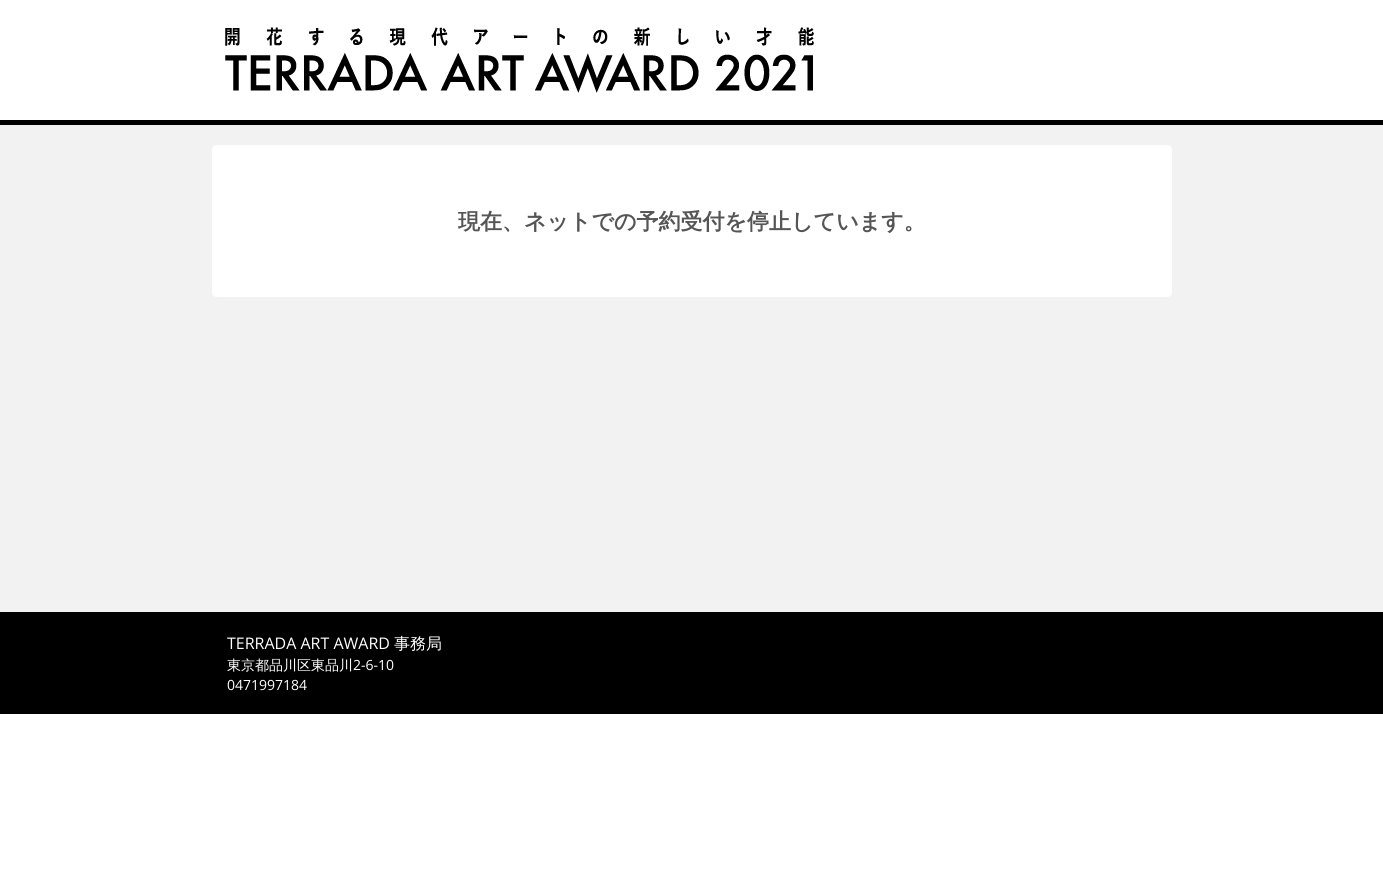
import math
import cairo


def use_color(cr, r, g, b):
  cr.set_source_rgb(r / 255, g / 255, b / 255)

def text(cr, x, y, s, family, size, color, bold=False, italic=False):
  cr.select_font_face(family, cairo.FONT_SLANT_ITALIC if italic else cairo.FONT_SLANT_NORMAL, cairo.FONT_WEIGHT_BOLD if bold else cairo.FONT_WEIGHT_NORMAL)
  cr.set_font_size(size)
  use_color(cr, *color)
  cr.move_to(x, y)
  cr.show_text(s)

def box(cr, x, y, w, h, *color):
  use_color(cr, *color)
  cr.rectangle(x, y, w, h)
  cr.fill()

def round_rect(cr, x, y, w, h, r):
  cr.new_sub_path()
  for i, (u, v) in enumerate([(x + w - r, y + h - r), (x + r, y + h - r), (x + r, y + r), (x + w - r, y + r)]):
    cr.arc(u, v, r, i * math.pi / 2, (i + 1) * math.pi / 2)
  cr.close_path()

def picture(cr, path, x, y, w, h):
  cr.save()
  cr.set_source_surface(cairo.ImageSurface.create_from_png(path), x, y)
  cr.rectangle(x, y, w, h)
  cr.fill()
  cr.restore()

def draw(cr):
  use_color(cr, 255, 255, 255)
  cr.paint()
  box(cr, 0, 120, 1383, 5, 0, 0, 0)
  picture(cr, "img_01.png", 225, 27, 589, 66)
  box(cr, 0, 125, 1383, 487, 242, 242, 242)
  use_color(cr, 255, 255, 255)
  round_rect(cr, 212, 145, 960, 152, 5)
  cr.fill()
  box(cr, 0, 612, 1383, 102, 0, 0, 0)
  text(cr, 458, 229, "現在、ネットでの予約受付を停止しています。", "WenQuanYi Zen Hei", 22, (85, 85, 85), bold=True)
  text(cr, 227, 649, "TERRADA ART AWARD", "Open Sans", 16, (255, 255, 255))
  text(cr, 394, 649, "事務局", "WenQuanYi Zen Hei Medium", 16, (255, 255, 255))
  text(cr, 227, 670, "東京都品川区東品川", "WenQuanYi Zen Hei Medium", 14, (255, 255, 255))
  text(cr, 353, 670, "2-6-10", "Open Sans", 14, (255, 255, 255))
  text(cr, 227, 690, "0471997184", "Open Sans", 14, (255, 255, 255))


surface = cairo.ImageSurface(cairo.FORMAT_RGB24, 1383, 890)
cr = cairo.Context(surface)
options = cairo.FontOptions()
options.set_hint_metrics(cairo.HINT_METRICS_OFF)
options.set_hint_style(cairo.HINT_STYLE_NONE)
cr.set_font_options(options)
cr.set_miter_limit(4)
draw(cr)
surface.write_to_png("out.png")
